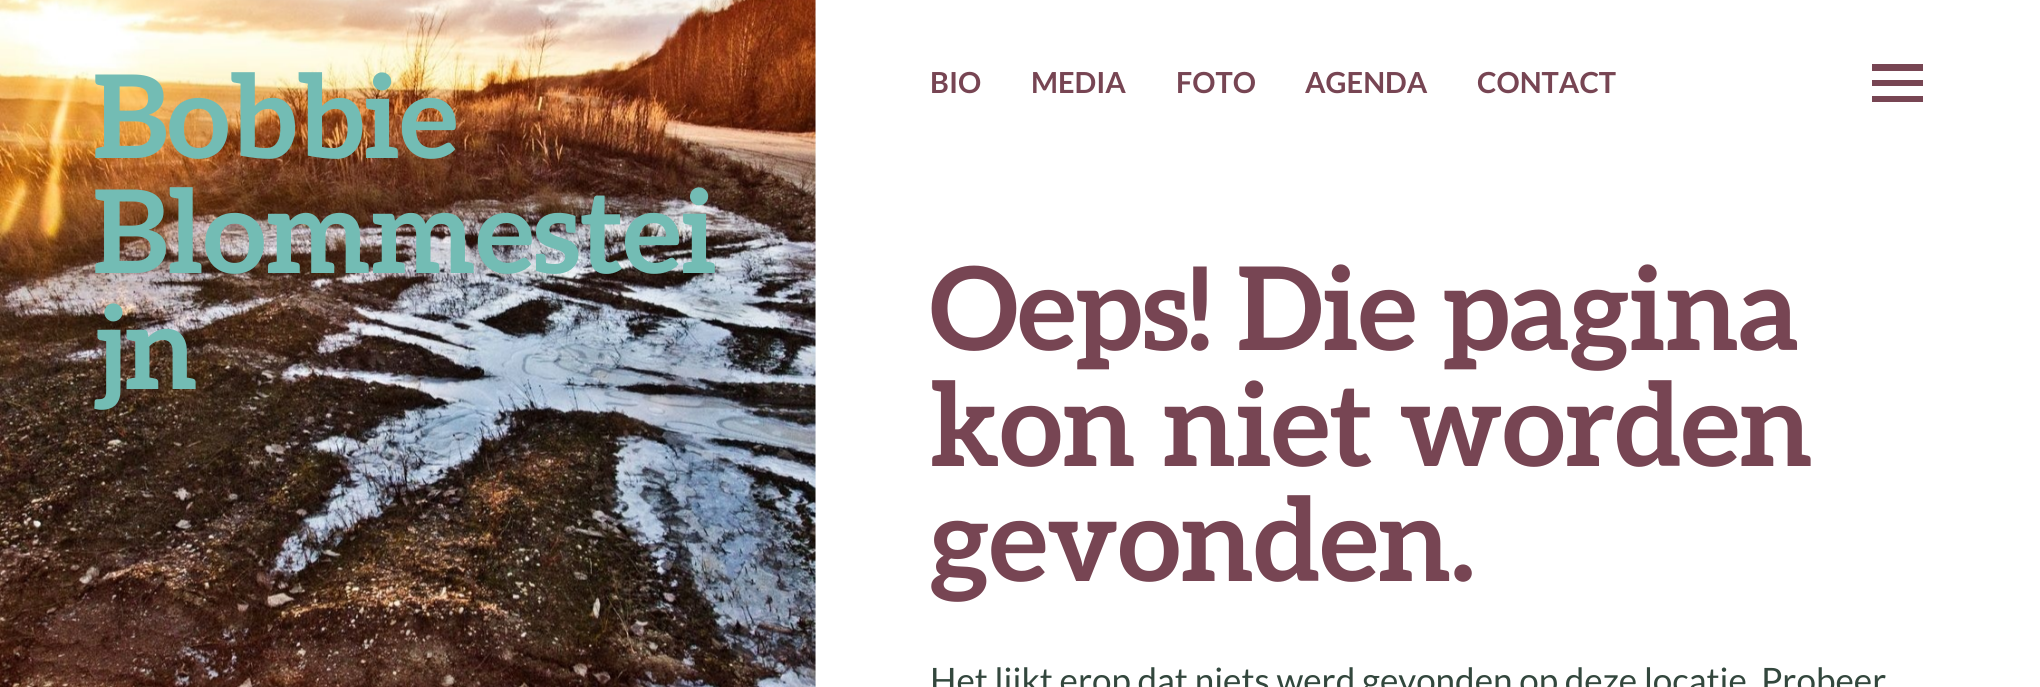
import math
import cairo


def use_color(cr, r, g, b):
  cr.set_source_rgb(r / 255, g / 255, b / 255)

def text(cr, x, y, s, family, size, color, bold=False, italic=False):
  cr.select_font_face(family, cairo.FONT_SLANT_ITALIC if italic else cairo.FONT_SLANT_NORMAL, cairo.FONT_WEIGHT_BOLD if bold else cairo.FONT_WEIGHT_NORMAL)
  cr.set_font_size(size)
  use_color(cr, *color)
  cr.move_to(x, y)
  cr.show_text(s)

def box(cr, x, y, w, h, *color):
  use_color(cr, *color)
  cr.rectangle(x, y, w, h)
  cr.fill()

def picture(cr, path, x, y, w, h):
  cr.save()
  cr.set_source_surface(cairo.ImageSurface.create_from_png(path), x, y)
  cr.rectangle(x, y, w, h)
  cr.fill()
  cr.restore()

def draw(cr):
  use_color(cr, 255, 255, 255)
  cr.paint()
  box(cr, 815, 0, 1, 687, 246, 247, 246)
  picture(cr, "img_01.png", 0, 0, 816, 687)
  use_color(cr, 119, 69, 83)
  cr.new_path()
  cr.move_to(1923, 64)
  cr.line_to(1923, 71)
  cr.line_to(1872, 71)
  cr.line_to(1872, 64)
  cr.close_path()
  cr.move_to(1872, 80)
  cr.line_to(1923, 80)
  cr.line_to(1923, 86)
  cr.line_to(1872, 86)
  cr.close_path()
  cr.move_to(1872, 96)
  cr.line_to(1923, 96)
  cr.line_to(1923, 102)
  cr.line_to(1872, 102)
  cr.close_path()
  cr.fill()
  text(cr, 93, 158, "Bobbie", "Aleo", 115.5, (115, 188, 180), bold=True)
  text(cr, 93, 273, "Blommestei", "Aleo", 115.5, (115, 188, 180), bold=True)
  text(cr, 93, 389, "jn", "Aleo", 115.5, (115, 188, 180), bold=True)
  text(cr, 930, 93, "BIO", "Lato", 29, (119, 69, 83), bold=True)
  text(cr, 1031, 93, "MEDIA", "Lato", 29, (119, 69, 83), bold=True)
  text(cr, 1176, 93, "FOTO", "Lato", 29, (119, 69, 83), bold=True)
  text(cr, 1305, 93, "AGENDA", "Lato", 29, (119, 69, 83), bold=True)
  text(cr, 1477, 93, "CONTACT", "Lato", 29, (119, 69, 83), bold=True)
  text(cr, 930, 350, "Oeps! Die pagina", "Aleo", 115.5, (119, 69, 83), bold=True)
  text(cr, 930, 466, "kon niet worden", "Aleo", 115.5, (119, 69, 83), bold=True)
  text(cr, 930, 581, "gevonden.", "Aleo", 115.5, (119, 69, 83), bold=True)
  text(cr, 930, 693, "Het lijkt erop dat niets werd gevonden op deze locatie. Probeer", "Lato", 35, (51, 71, 61))


surface = cairo.ImageSurface(cairo.FORMAT_RGB24, 2040, 687)
cr = cairo.Context(surface)
options = cairo.FontOptions()
options.set_hint_metrics(cairo.HINT_METRICS_OFF)
options.set_hint_style(cairo.HINT_STYLE_NONE)
cr.set_font_options(options)
cr.set_miter_limit(4)
draw(cr)
surface.write_to_png("out.png")
